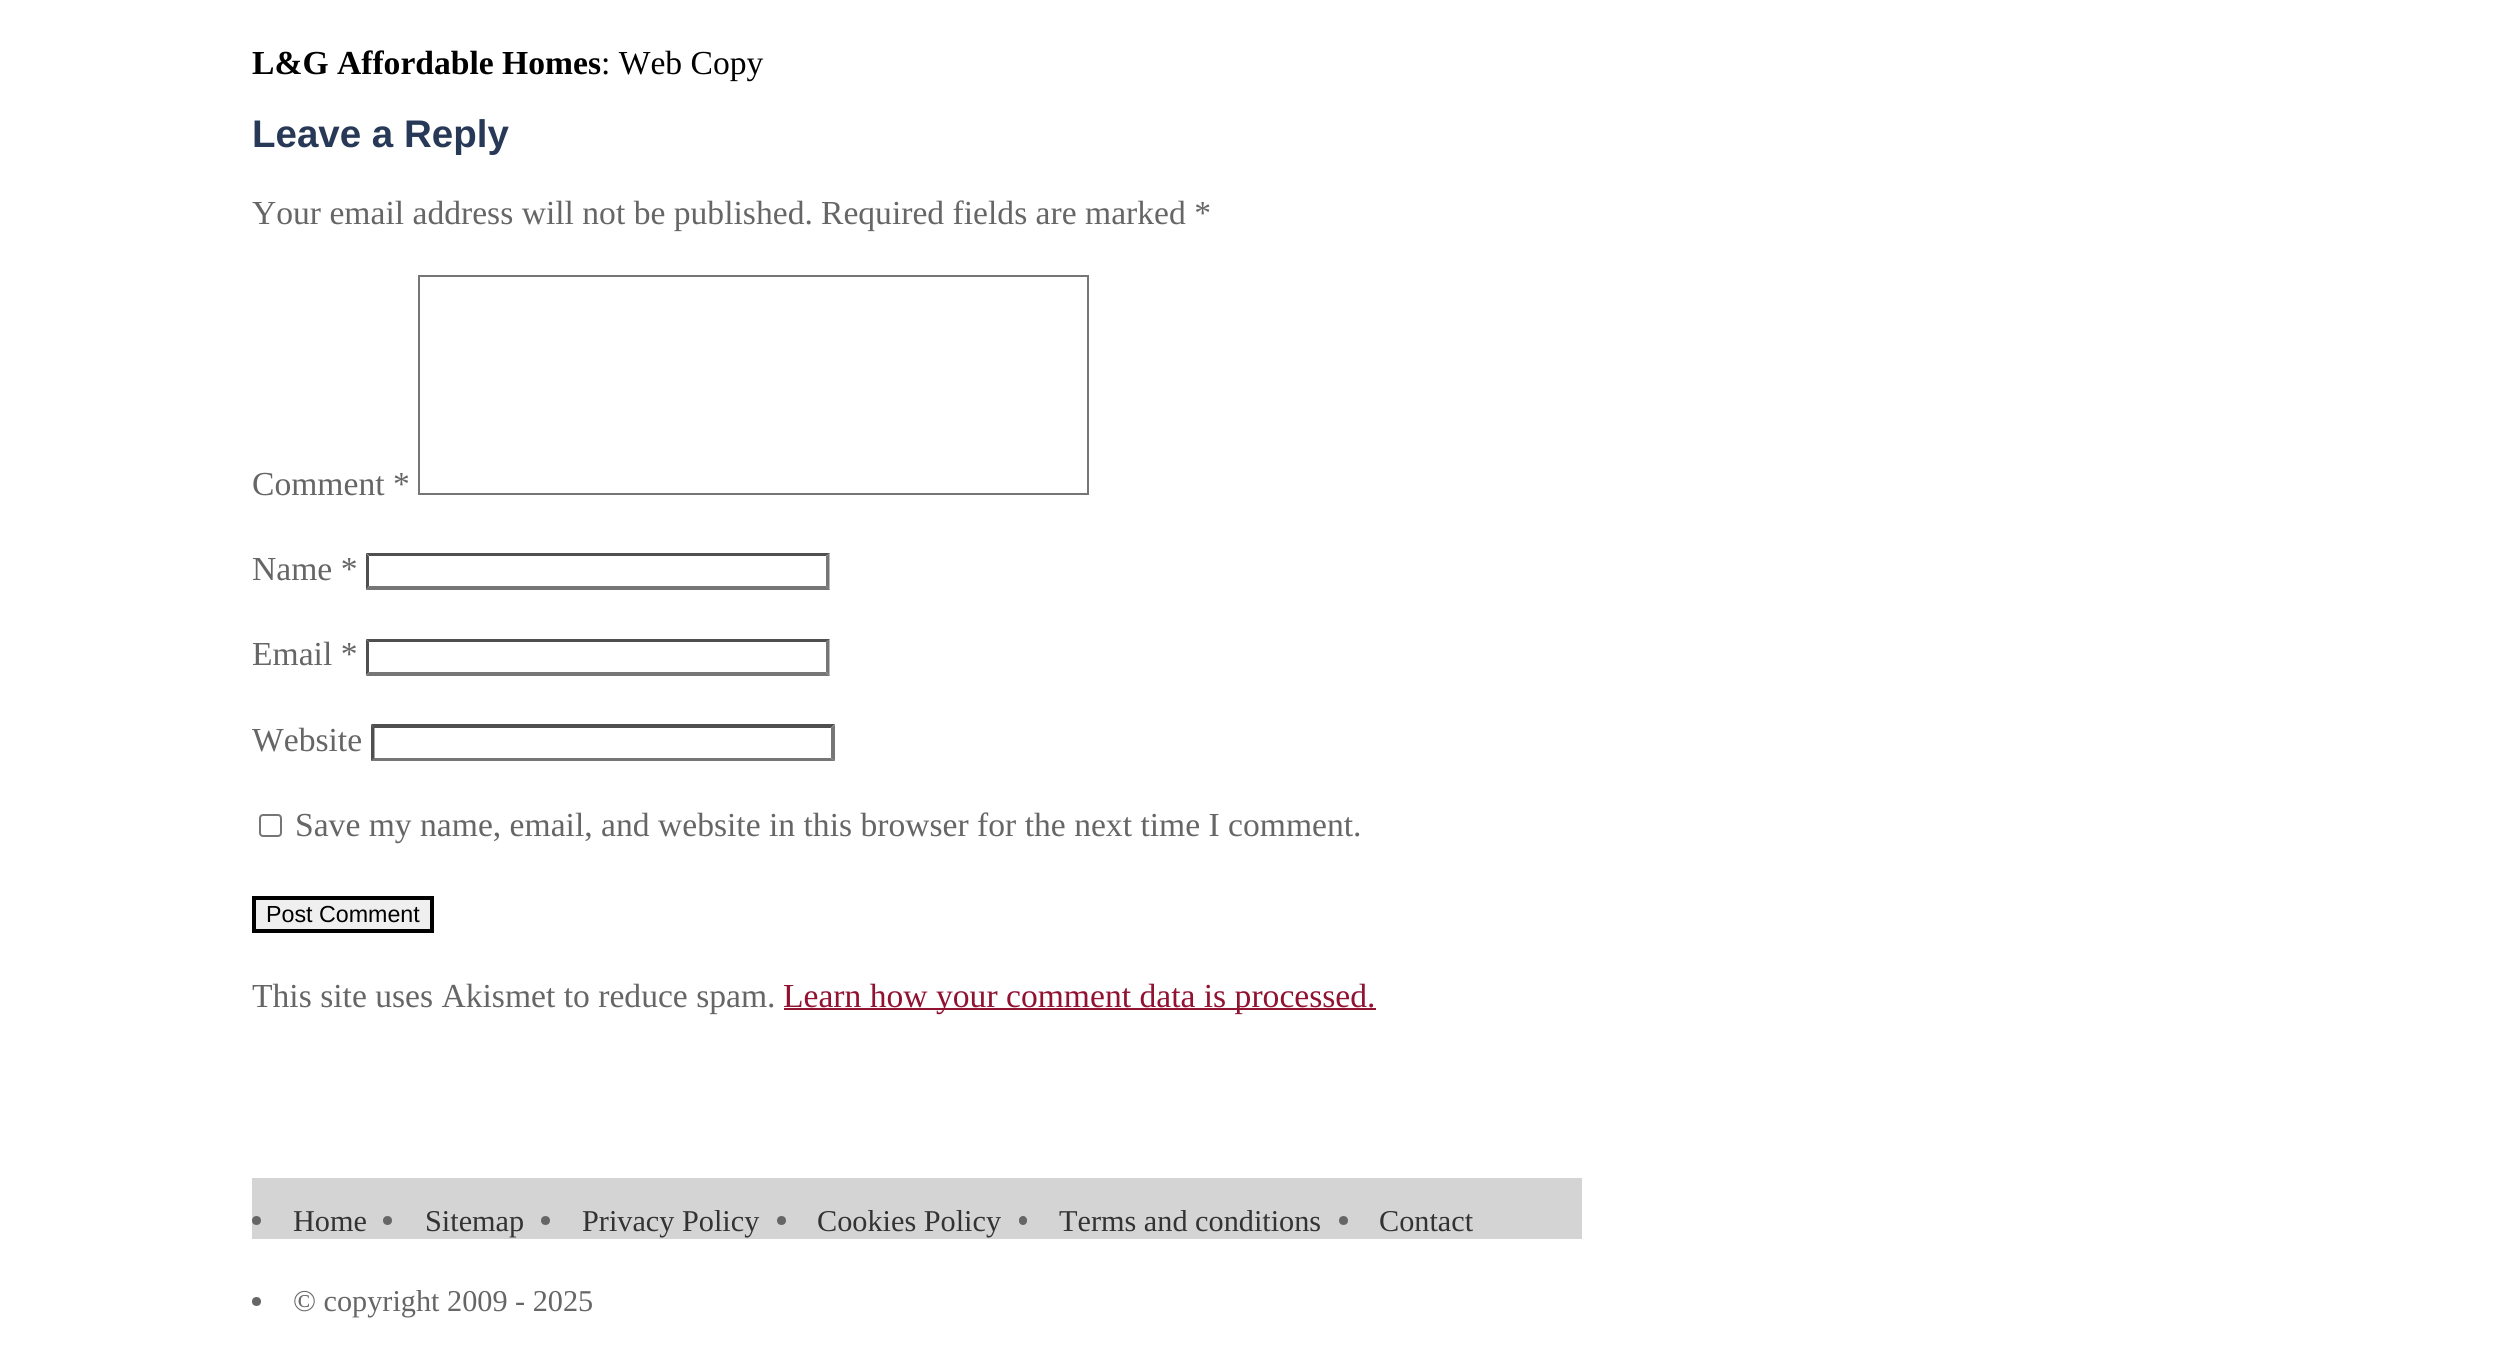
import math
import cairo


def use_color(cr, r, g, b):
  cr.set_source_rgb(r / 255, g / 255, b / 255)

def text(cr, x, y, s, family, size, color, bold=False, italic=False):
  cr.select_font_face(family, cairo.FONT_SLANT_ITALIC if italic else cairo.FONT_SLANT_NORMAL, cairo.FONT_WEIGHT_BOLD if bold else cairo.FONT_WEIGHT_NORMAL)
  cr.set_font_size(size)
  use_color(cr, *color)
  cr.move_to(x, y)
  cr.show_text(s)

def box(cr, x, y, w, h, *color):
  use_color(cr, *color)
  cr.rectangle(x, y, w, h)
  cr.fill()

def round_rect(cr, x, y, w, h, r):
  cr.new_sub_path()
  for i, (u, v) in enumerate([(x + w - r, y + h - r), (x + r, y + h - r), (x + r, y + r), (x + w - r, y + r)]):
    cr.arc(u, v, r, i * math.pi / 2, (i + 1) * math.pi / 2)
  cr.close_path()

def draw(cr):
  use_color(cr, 255, 255, 255)
  cr.paint()
  cr.rectangle(419, 276, 669, 218)
  use_color(cr, 118, 118, 118)
  cr.stroke()
  use_color(cr, 79, 79, 79)
  cr.new_path()
  cr.move_to(366, 553)
  cr.line_to(830, 553)
  cr.line_to(826, 556)
  cr.line_to(369, 556)
  cr.close_path()
  cr.fill()
  use_color(cr, 118, 118, 118)
  cr.new_path()
  cr.move_to(829.5, 553)
  cr.line_to(829.5, 590)
  cr.line_to(826, 586)
  cr.line_to(826, 556.5)
  cr.close_path()
  cr.fill()
  cr.new_path()
  cr.move_to(830, 590)
  cr.line_to(366, 590)
  cr.line_to(369, 586)
  cr.line_to(826, 586)
  cr.close_path()
  cr.fill()
  use_color(cr, 79, 79, 79)
  cr.new_path()
  cr.move_to(366, 590)
  cr.line_to(366, 553)
  cr.line_to(369, 556.5)
  cr.line_to(369, 586)
  cr.close_path()
  cr.fill()
  cr.new_path()
  cr.move_to(366, 639)
  cr.line_to(830, 639)
  cr.line_to(826, 642)
  cr.line_to(369, 642)
  cr.close_path()
  cr.fill()
  use_color(cr, 118, 118, 118)
  cr.new_path()
  cr.move_to(829.5, 639)
  cr.line_to(829.5, 675.5)
  cr.line_to(826, 672)
  cr.line_to(826, 642)
  cr.close_path()
  cr.fill()
  cr.new_path()
  cr.move_to(830, 676)
  cr.line_to(366, 676)
  cr.line_to(369, 672)
  cr.line_to(826, 672)
  cr.close_path()
  cr.fill()
  use_color(cr, 79, 79, 79)
  cr.new_path()
  cr.move_to(366, 675.5)
  cr.line_to(366, 639)
  cr.line_to(369, 642)
  cr.line_to(369, 672)
  cr.close_path()
  cr.fill()
  cr.new_path()
  cr.move_to(371, 724)
  cr.line_to(835, 724)
  cr.line_to(831, 728)
  cr.line_to(374, 728)
  cr.close_path()
  cr.fill()
  use_color(cr, 118, 118, 118)
  cr.new_path()
  cr.move_to(835, 724.5)
  cr.line_to(835, 761)
  cr.line_to(831, 758)
  cr.line_to(831, 728)
  cr.close_path()
  cr.fill()
  cr.new_path()
  cr.move_to(835, 761)
  cr.line_to(371, 761)
  cr.line_to(374, 758)
  cr.line_to(831, 758)
  cr.close_path()
  cr.fill()
  use_color(cr, 79, 79, 79)
  cr.new_path()
  cr.move_to(371, 761)
  cr.line_to(371, 724.5)
  cr.line_to(374.5, 728)
  cr.line_to(374.5, 758)
  cr.close_path()
  cr.fill()
  round_rect(cr, 260, 815, 21, 21, 3)
  use_color(cr, 118, 118, 118)
  cr.stroke()
  use_color(cr, 239, 239, 239)
  cr.rectangle(254, 898, 178, 33)
  cr.fill_preserve()
  use_color(cr, 0, 0, 0)
  cr.set_line_width(4)
  cr.stroke()
  box(cr, 784, 1008, 592, 2, 145, 17, 49)
  box(cr, 252, 1178, 1330, 61, 212, 212, 212)
  use_color(cr, 102, 102, 102)
  cr.arc(256.5, 1220.5, 4.5, 0, 2 * math.pi)
  cr.fill()
  cr.arc(387.5, 1220.5, 4.5, 0, 2 * math.pi)
  cr.fill()
  cr.arc(545.5, 1220.5, 4.5, 0, 2 * math.pi)
  cr.fill()
  cr.arc(781.5, 1220.5, 4.5, 0, 2 * math.pi)
  cr.fill()
  round_rect(cr, 1019, 1216, 8, 9, 4)
  cr.fill()
  cr.arc(1343.5, 1220.5, 4.5, 0, 2 * math.pi)
  cr.fill()
  cr.arc(256.5, 1301.5, 4.5, 0, 2 * math.pi)
  cr.fill()
  text(cr, 252, 74, "L&G Affordable Homes", "Liberation Serif", 33.6, (0, 0, 0), bold=True)
  text(cr, 601, 74, ": Web Copy", "Liberation Serif", 33.6, (0, 0, 0))
  text(cr, 252, 147, "Leave a Reply", "Liberation Sans", 38.5, (39, 57, 87), bold=True)
  text(cr, 252, 224, "Your email address will not be published.", "Liberation Serif", 33.6, (102, 102, 102))
  text(cr, 821, 224, "Required fields are marked *", "Liberation Serif", 33.6, (102, 102, 102))
  text(cr, 252, 495, "Comment *", "Liberation Serif", 33.6, (102, 102, 102))
  text(cr, 252, 580, "Name *", "Liberation Serif", 33.6, (102, 102, 102))
  text(cr, 252, 665, "Email *", "Liberation Serif", 33.6, (102, 102, 102))
  text(cr, 252, 751, "Website", "Liberation Serif", 33.6, (102, 102, 102))
  text(cr, 295, 836, "Save my name, email, and website in this browser for the next time I comment.", "Liberation Serif", 33.6, (102, 102, 102))
  text(cr, 266, 922, "Post Comment", "Liberation Sans", 23.25, (0, 0, 0))
  text(cr, 252, 1007, "This site uses Akismet to reduce spam.", "Liberation Serif", 33.6, (102, 102, 102))
  text(cr, 783, 1007, "Learn how your comment data is processed.", "Liberation Serif", 33.6, (145, 17, 49))
  text(cr, 293, 1231, "Home", "Liberation Serif", 30.25, (51, 51, 51))
  text(cr, 425, 1231, "Sitemap", "Liberation Serif", 30.25, (51, 51, 51))
  text(cr, 582, 1231, "Privacy Policy", "Liberation Serif", 30.25, (51, 51, 51))
  text(cr, 817, 1231, "Cookies Policy", "Liberation Serif", 30.25, (51, 51, 51))
  text(cr, 1059, 1231, "Terms and conditions", "Liberation Serif", 30.25, (51, 51, 51))
  text(cr, 1379, 1231, "Contact", "Liberation Serif", 30.25, (51, 51, 51))
  text(cr, 293, 1311, "© copyright 2009 - 2025", "Liberation Serif", 30.25, (102, 102, 102))


surface = cairo.ImageSurface(cairo.FORMAT_RGB24, 2517, 1359)
cr = cairo.Context(surface)
options = cairo.FontOptions()
options.set_hint_metrics(cairo.HINT_METRICS_OFF)
options.set_hint_style(cairo.HINT_STYLE_NONE)
cr.set_font_options(options)
cr.set_miter_limit(4)
draw(cr)
surface.write_to_png("out.png")
